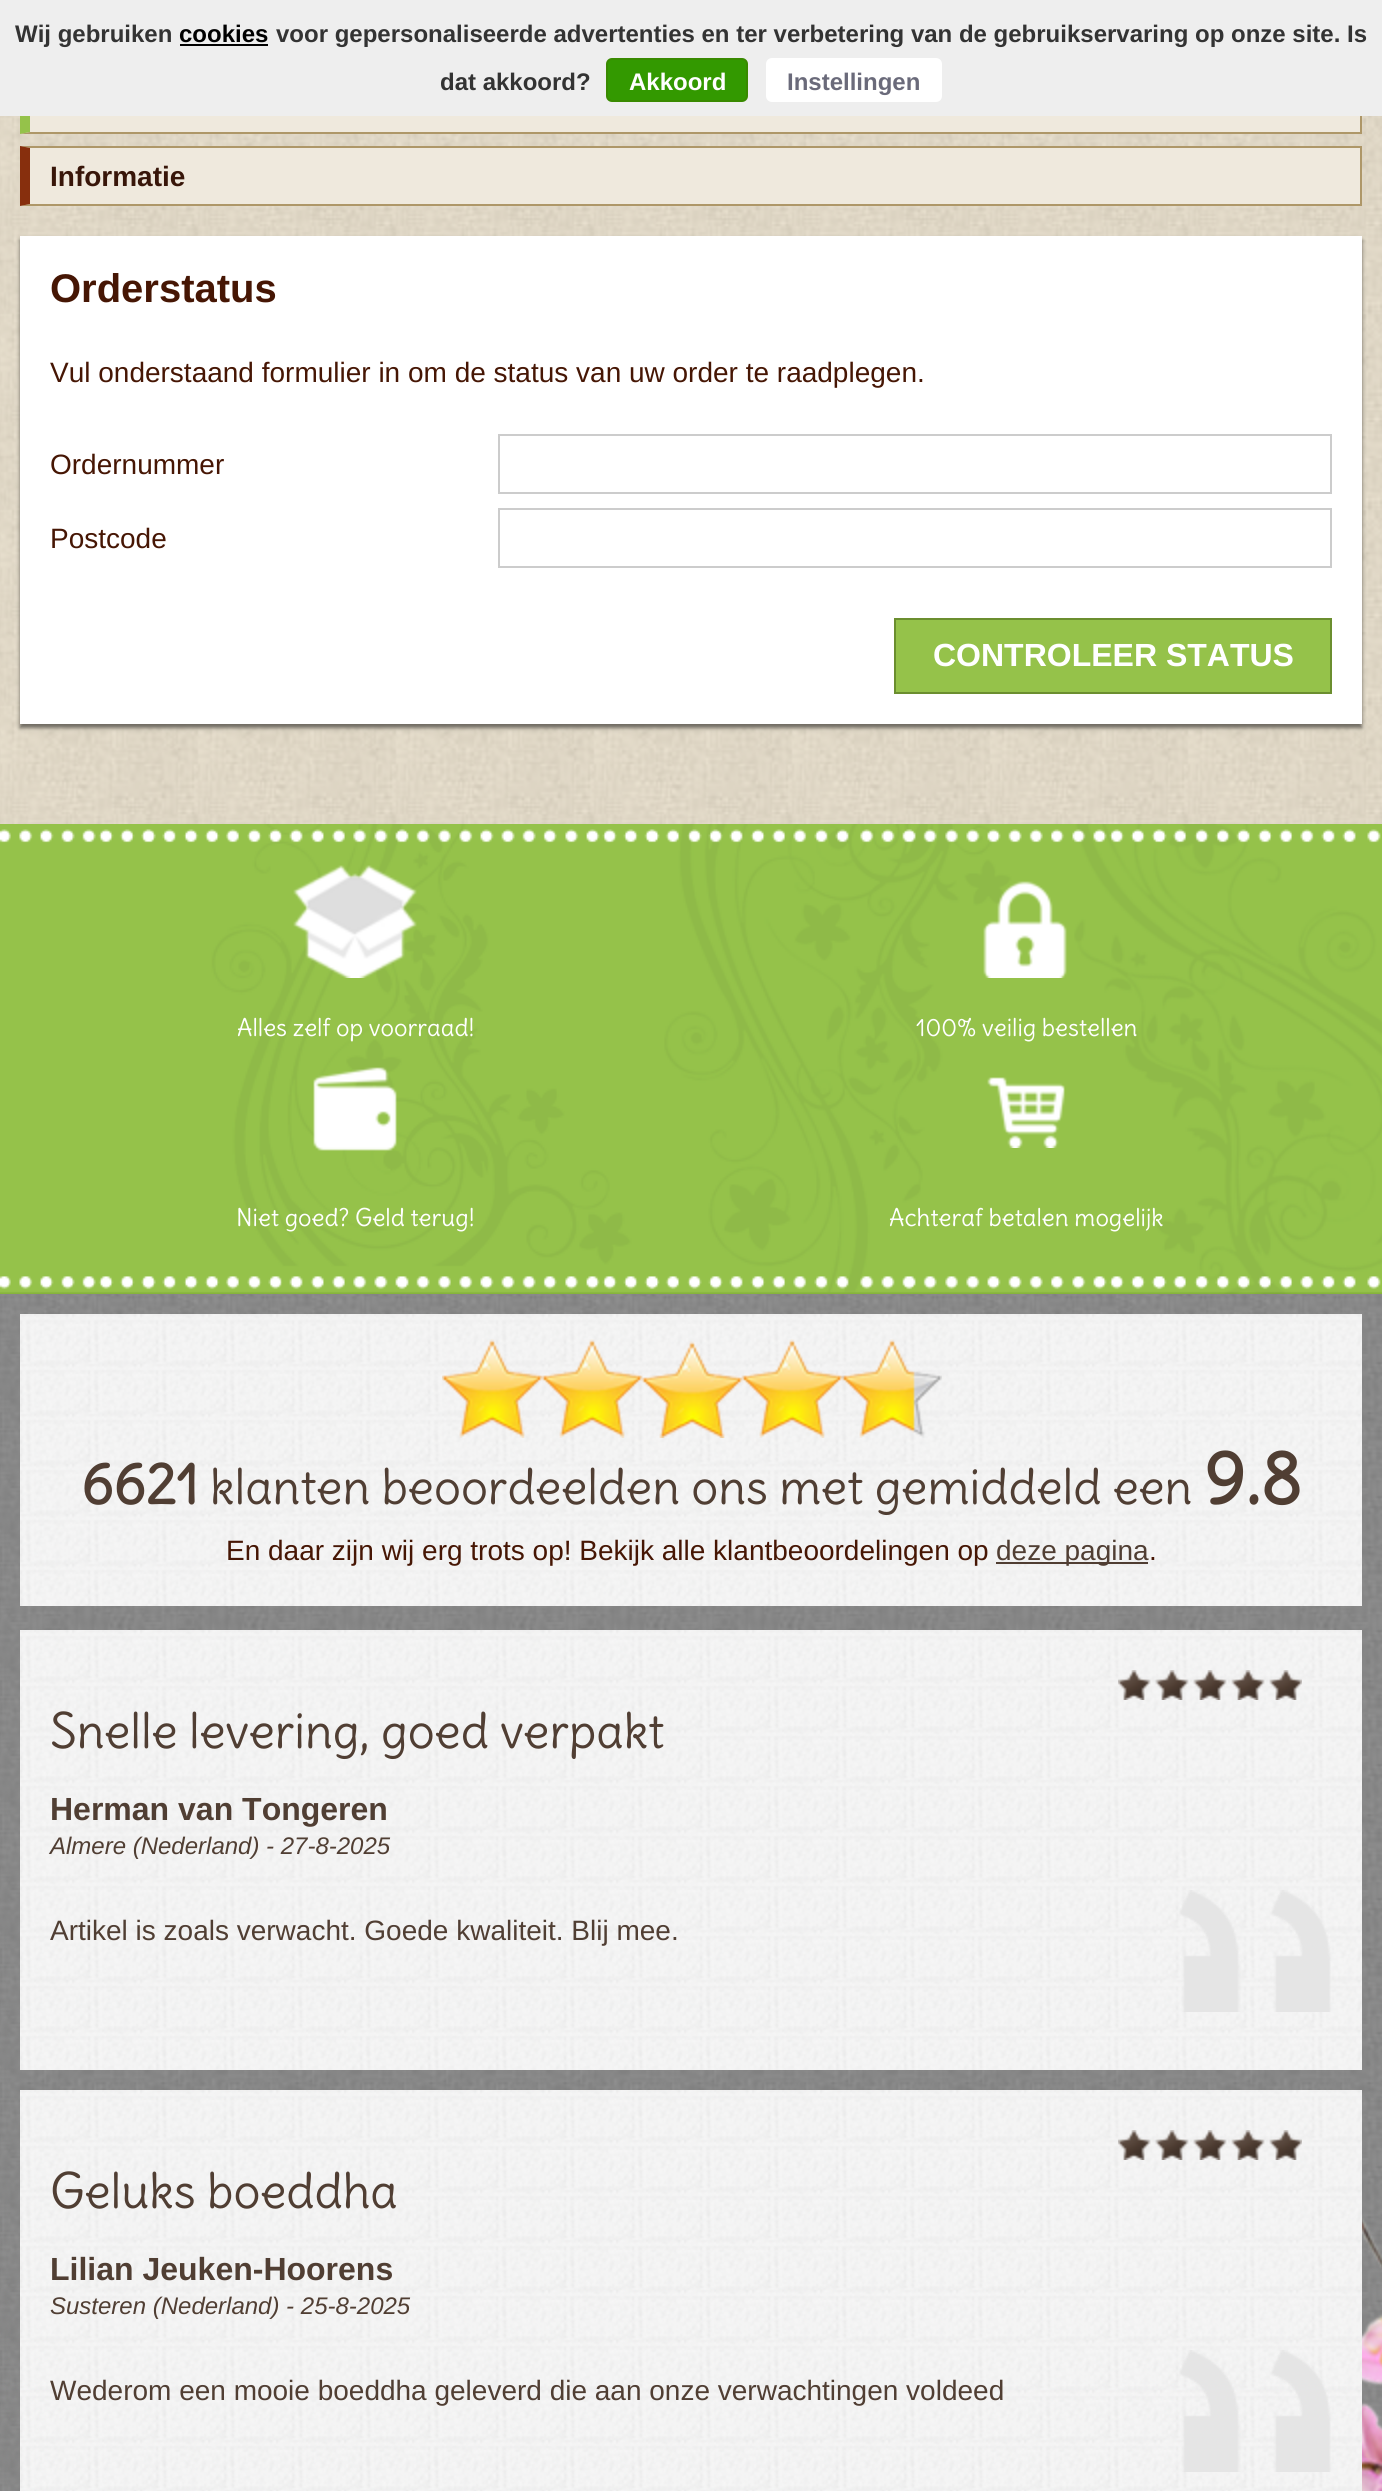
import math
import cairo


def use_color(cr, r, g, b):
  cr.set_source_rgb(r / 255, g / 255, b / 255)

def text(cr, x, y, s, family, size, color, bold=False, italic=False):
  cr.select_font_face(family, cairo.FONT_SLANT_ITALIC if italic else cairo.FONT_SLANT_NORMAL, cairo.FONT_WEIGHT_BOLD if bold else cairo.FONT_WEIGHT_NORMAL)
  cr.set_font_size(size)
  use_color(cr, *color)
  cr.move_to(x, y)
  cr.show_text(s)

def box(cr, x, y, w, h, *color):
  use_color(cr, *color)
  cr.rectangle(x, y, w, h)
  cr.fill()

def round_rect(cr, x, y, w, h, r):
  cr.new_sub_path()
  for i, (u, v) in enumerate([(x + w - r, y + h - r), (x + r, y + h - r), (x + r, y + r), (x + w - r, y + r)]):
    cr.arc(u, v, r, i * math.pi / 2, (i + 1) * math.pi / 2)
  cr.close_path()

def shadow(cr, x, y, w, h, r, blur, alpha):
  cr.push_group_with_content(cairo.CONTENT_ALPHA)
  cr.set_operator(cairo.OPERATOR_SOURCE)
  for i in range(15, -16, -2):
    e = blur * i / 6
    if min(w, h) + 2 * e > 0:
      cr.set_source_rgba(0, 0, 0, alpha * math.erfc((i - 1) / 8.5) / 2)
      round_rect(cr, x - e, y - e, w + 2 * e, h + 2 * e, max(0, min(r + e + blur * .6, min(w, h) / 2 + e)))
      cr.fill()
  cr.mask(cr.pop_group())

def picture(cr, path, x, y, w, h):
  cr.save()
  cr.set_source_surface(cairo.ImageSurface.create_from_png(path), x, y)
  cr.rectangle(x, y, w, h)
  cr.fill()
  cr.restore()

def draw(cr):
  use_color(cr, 255, 255, 255)
  cr.paint()
  picture(cr, "img_01.png", 0, 116, 1382, 708)
  box(cr, 1360, 116, 2, 18, 174, 151, 104)
  cr.new_path()
  cr.move_to(1362, 134)
  cr.line_to(20, 134)
  cr.line_to(30, 132)
  cr.line_to(1360, 132)
  cr.close_path()
  cr.fill()
  use_color(cr, 149, 194, 74)
  cr.new_path()
  cr.move_to(20, 134)
  cr.line_to(20, 74)
  cr.line_to(30, 76)
  cr.line_to(30, 132)
  cr.close_path()
  cr.fill()
  box(cr, 0, 0, 1382, 116, 238, 238, 238)
  box(cr, 180, 44, 88, 2, 0, 0, 0)
  use_color(cr, 51, 153, 0)
  round_rect(cr, 607, 59, 140, 42, 5)
  cr.fill_preserve()
  use_color(cr, 57, 138, 0)
  cr.stroke()
  use_color(cr, 255, 255, 255)
  round_rect(cr, 766, 58, 176, 44, 6)
  cr.fill()
  box(cr, 30, 116, 1330, 16, 239, 233, 221)
  box(cr, 30, 148, 1330, 56, 239, 233, 221)
  use_color(cr, 174, 151, 104)
  cr.new_path()
  cr.move_to(20, 146)
  cr.line_to(1362, 146)
  cr.line_to(1360, 148)
  cr.line_to(30, 148)
  cr.close_path()
  cr.fill()
  box(cr, 1360, 146, 2, 60, 174, 151, 104)
  cr.new_path()
  cr.move_to(1362, 206)
  cr.line_to(20, 206)
  cr.line_to(30, 204)
  cr.line_to(1360, 204)
  cr.close_path()
  cr.fill()
  use_color(cr, 135, 47, 13)
  cr.new_path()
  cr.move_to(20, 206)
  cr.line_to(20, 146)
  cr.line_to(30, 148)
  cr.line_to(30, 204)
  cr.close_path()
  cr.fill()
  use_color(cr, 110, 106, 97)
  shadow(cr, 20, 240, 1342, 488, 0, 2, 1)
  box(cr, 20, 236, 1342, 488, 255, 255, 255)
  cr.rectangle(499, 435, 832, 58)
  use_color(cr, 204, 204, 204)
  cr.stroke()
  cr.rectangle(499, 509, 832, 58)
  cr.stroke()
  use_color(cr, 149, 194, 74)
  cr.rectangle(895, 619, 436, 74)
  cr.fill_preserve()
  use_color(cr, 107, 142, 47)
  cr.stroke()
  picture(cr, "img_02.png", 0, 824, 1382, 470)
  picture(cr, "img_03.png", 293, 865, 124, 113)
  picture(cr, "img_04.png", 983, 881, 84, 97)
  picture(cr, "img_05.png", 313, 1067, 84, 84)
  picture(cr, "img_06.png", 987, 1077, 78, 71)
  picture(cr, "img_07.png", 0, 1294, 1382, 1197)
  picture(cr, "img_08.png", 20, 1314, 1342, 292)
  picture(cr, "img_09.png", 442, 1339, 500, 99)
  box(cr, 996, 1562, 152, 2, 80, 62, 51)
  picture(cr, "img_10.png", 20, 1630, 1342, 440)
  picture(cr, "img_11.png", 1118, 1670, 184, 30)
  picture(cr, "img_12.png", 1179, 1890, 152, 122)
  picture(cr, "img_13.png", 20, 2090, 1342, 401)
  picture(cr, "img_14.png", 1118, 2130, 184, 30)
  picture(cr, "img_12.png", 1179, 2350, 152, 122)
  picture(cr, "img_15.png", 1362, 2214, 20, 277)
  text(cr, 15, 42, "Wij gebruiken", "Liberation Sans", 24, (51, 51, 51), bold=True)
  text(cr, 179, 42, "cookies", "Liberation Sans", 24, (0, 0, 0), bold=True)
  text(cr, 276, 42, "voor gepersonaliseerde advertenties en ter verbetering van de gebruikservaring op onze site. Is", "Liberation Sans", 24, (51, 51, 51), bold=True)
  text(cr, 440, 90, "dat akkoord?", "Liberation Sans", 24, (51, 51, 51), bold=True)
  text(cr, 629, 90, "Akkoord", "Liberation Sans", 24, (255, 255, 255), bold=True)
  text(cr, 787, 90, "Instellingen", "Liberation Sans", 24, (106, 106, 122), bold=True)
  text(cr, 50, 186, "Informatie", "Liberation Sans", 28, (56, 22, 9), bold=True)
  text(cr, 50, 302, "Orderstatus", "Liberation Sans", 40, (70, 22, 4), bold=True)
  text(cr, 50, 382, "Vul onderstaand formulier in om de status van uw order te raadplegen.", "Liberation Sans", 28, (70, 22, 4))
  text(cr, 50, 474, "Ordernummer", "Liberation Sans", 28, (70, 22, 4))
  text(cr, 50, 548, "Postcode", "Liberation Sans", 28, (70, 22, 4))
  text(cr, 933, 666, "CONTROLEER STATUS", "Liberation Sans", 32, (255, 255, 255), bold=True)
  text(cr, 237, 1036, "Alles zelf op voorraad!", "Delius", 24, (255, 255, 255))
  text(cr, 916, 1036, "100% veilig bestellen", "Delius", 24, (255, 255, 255))
  text(cr, 236, 1226, "Niet goed? Geld terug!", "Delius", 24, (255, 255, 255))
  text(cr, 889, 1226, "Achteraf betalen mogelijk", "Delius", 24, (255, 255, 255))
  text(cr, 81, 1504, "6621", "Delius", 56, (80, 62, 51), bold=True)
  text(cr, 210, 1504, "klanten beoordeelden ons met gemiddeld een", "Delius", 48, (80, 62, 51))
  text(cr, 1204, 1504, "9.8", "Delius", 72, (80, 62, 51), bold=True)
  text(cr, 226, 1560, "En daar zijn wij erg trots op! Bekijk alle klantbeoordelingen op", "Liberation Sans", 28, (70, 22, 4))
  text(cr, 996, 1560, "deze pagina", "Liberation Sans", 28, (80, 62, 51))
  text(cr, 1149, 1560, ".", "Liberation Sans", 28, (70, 22, 4))
  text(cr, 50, 1748, "Snelle levering, goed verpakt", "Delius", 48, (80, 62, 51))
  text(cr, 50, 1820, "Herman van Tongeren", "Liberation Sans", 32, (80, 62, 51), bold=True)
  text(cr, 50, 1854, "Almere (Nederland) - 27-8-2025", "Liberation Sans", 24, (80, 62, 51), italic=True)
  text(cr, 50, 1940, "Artikel is zoals verwacht. Goede kwaliteit. Blij mee.", "Liberation Sans", 28, (80, 62, 51))
  text(cr, 50, 2208, "Geluks boeddha", "Delius", 48, (80, 62, 51))
  text(cr, 50, 2280, "Lilian Jeuken-Hoorens", "Liberation Sans", 32, (80, 62, 51), bold=True)
  text(cr, 50, 2314, "Susteren (Nederland) - 25-8-2025", "Liberation Sans", 24, (80, 62, 51), italic=True)
  text(cr, 50, 2400, "Wederom een mooie boeddha geleverd die aan onze verwachtingen voldeed", "Liberation Sans", 28, (80, 62, 51))


surface = cairo.ImageSurface(cairo.FORMAT_RGB24, 1382, 2491)
cr = cairo.Context(surface)
options = cairo.FontOptions()
options.set_hint_metrics(cairo.HINT_METRICS_OFF)
options.set_hint_style(cairo.HINT_STYLE_NONE)
cr.set_font_options(options)
cr.set_miter_limit(4)
draw(cr)
surface.write_to_png("out.png")
